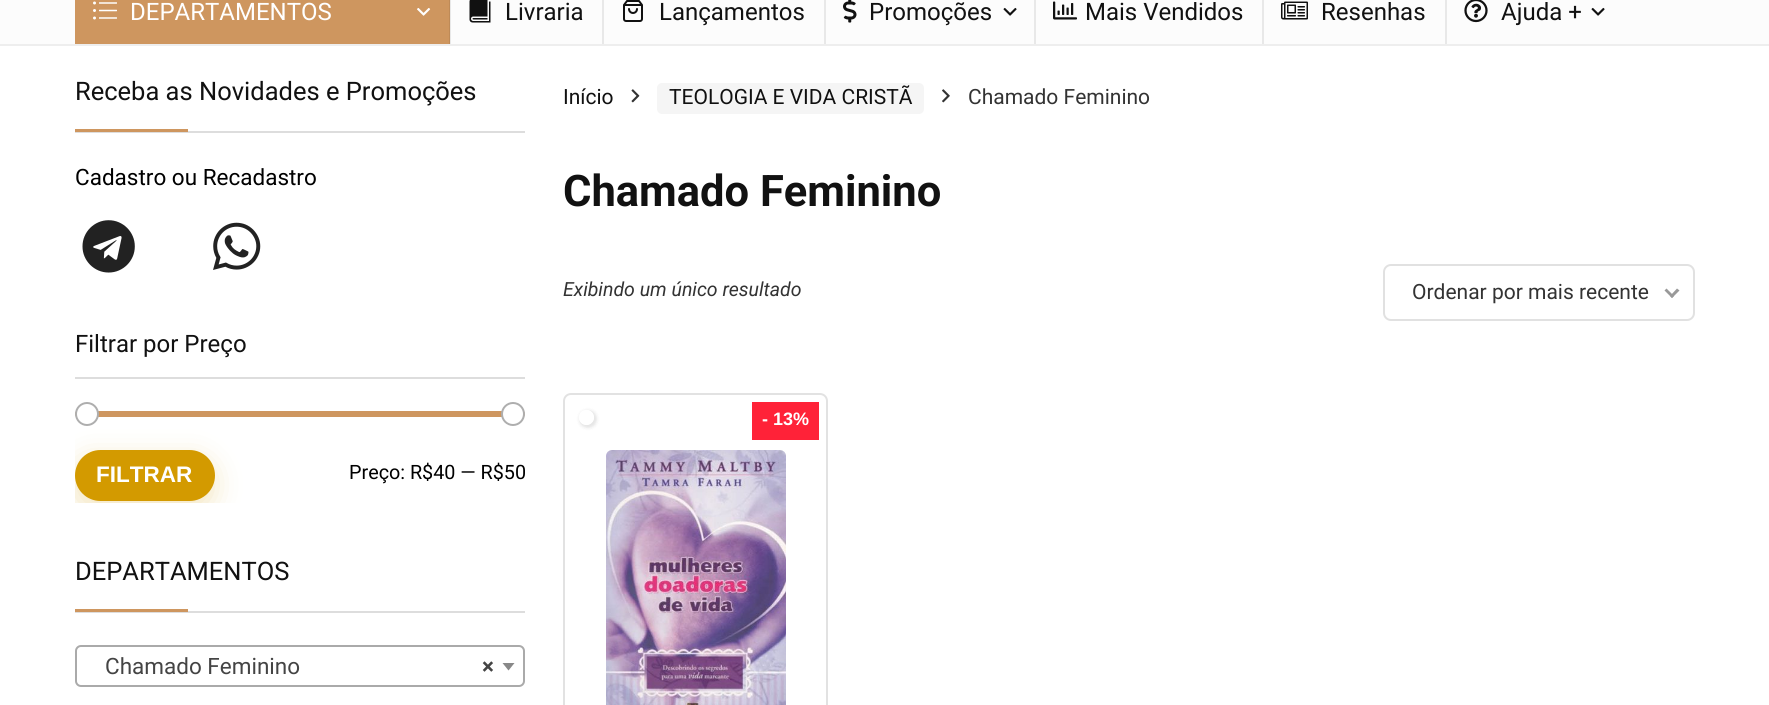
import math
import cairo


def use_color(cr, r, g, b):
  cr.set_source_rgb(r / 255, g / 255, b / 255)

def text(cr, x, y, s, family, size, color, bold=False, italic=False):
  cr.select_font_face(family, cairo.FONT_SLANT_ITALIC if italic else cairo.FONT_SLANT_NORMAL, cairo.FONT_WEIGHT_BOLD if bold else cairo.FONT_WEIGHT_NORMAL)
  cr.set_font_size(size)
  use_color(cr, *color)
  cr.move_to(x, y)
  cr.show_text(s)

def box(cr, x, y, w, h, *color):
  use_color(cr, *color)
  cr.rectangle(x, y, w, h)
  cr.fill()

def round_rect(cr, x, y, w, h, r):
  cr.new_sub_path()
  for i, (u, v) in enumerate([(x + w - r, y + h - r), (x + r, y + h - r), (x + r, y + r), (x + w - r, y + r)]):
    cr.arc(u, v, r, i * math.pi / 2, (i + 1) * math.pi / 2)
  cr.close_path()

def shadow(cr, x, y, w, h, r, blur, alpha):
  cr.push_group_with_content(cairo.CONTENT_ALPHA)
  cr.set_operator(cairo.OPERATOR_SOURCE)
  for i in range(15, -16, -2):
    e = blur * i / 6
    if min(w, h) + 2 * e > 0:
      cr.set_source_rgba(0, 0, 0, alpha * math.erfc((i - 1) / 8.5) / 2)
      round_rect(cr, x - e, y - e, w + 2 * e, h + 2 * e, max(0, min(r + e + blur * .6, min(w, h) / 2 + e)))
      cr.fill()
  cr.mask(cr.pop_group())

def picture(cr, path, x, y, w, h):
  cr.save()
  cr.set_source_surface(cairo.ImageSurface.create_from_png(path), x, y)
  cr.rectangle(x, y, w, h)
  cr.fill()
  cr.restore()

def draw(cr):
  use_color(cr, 255, 255, 255)
  cr.paint()
  box(cr, 0, 0, 1769, 44, 252, 252, 252)
  box(cr, 450, 0, 1, 44, 232, 232, 232)
  box(cr, 0, 44, 1769, 2, 238, 238, 238)
  box(cr, 75, 0, 374, 44, 206, 150, 95)
  box(cr, 449, 0, 1, 44, 190, 138, 87)
  picture(cr, "img_01.png", 93, 1, 24, 19)
  picture(cr, "img_02.png", 417, 8, 14, 8)
  box(cr, 602, 0, 2, 44, 232, 232, 232)
  picture(cr, "img_03.png", 469, 0, 22, 23)
  box(cr, 824, 0, 2, 44, 232, 232, 232)
  picture(cr, "img_04.png", 623, 0, 20, 22)
  box(cr, 1034, 0, 2, 44, 232, 232, 232)
  picture(cr, "img_05.png", 843, 0, 14, 23)
  picture(cr, "img_06.png", 1003, 7, 14, 9)
  box(cr, 1262, 0, 2, 44, 232, 232, 232)
  picture(cr, "img_07.png", 1053, 1, 24, 19)
  box(cr, 1445, 0, 2, 44, 232, 232, 232)
  picture(cr, "img_08.png", 1281, 1, 27, 19)
  picture(cr, "img_09.png", 1464, 0, 24, 23)
  picture(cr, "img_06.png", 1591, 7, 14, 9)
  box(cr, 75, 131, 450, 2, 221, 221, 221)
  box(cr, 75, 129, 113, 3, 206, 150, 95)
  picture(cr, "img_10.png", 82, 220, 53, 53)
  picture(cr, "img_11.png", 213, 222, 48, 48)
  box(cr, 75, 377, 450, 2, 221, 221, 221)
  cr.save()
  cr.rectangle(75, 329, 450, 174)
  cr.clip()
  use_color(cr, 211, 154, 0)
  shadow(cr, 74, 459, 139, 51, 25.5, 14, 0.25)
  cr.restore()
  use_color(cr, 206, 150, 95)
  round_rect(cr, 75, 411, 450, 6, 3)
  cr.fill()
  use_color(cr, 255, 255, 255)
  cr.arc(87, 414, 11, 0, 2 * math.pi)
  cr.fill_preserve()
  use_color(cr, 174, 174, 174)
  cr.stroke()
  use_color(cr, 255, 255, 255)
  cr.arc(513, 414, 11, 0, 2 * math.pi)
  cr.fill_preserve()
  use_color(cr, 174, 174, 174)
  cr.stroke()
  use_color(cr, 211, 154, 0)
  round_rect(cr, 75, 450, 140, 51, 25.5)
  cr.fill()
  box(cr, 75, 611, 450, 2, 221, 221, 221)
  box(cr, 75, 609, 113, 3, 206, 150, 95)
  round_rect(cr, 76, 646, 448, 40, 5)
  use_color(cr, 170, 170, 170)
  cr.stroke()
  use_color(cr, 136, 136, 136)
  cr.new_path()
  cr.move_to(502.5, 663)
  cr.line_to(514.5, 663)
  cr.line_to(508.5, 670.5)
  cr.close_path()
  cr.fill()
  picture(cr, "img_12.png", 631, 89, 9, 14)
  use_color(cr, 245, 245, 245)
  round_rect(cr, 657, 83, 267, 31, 5)
  cr.fill()
  picture(cr, "img_13.png", 942, 89, 8, 14)
  round_rect(cr, 1384, 265, 310, 55, 7)
  use_color(cr, 225, 225, 225)
  cr.stroke()
  use_color(cr, 153, 153, 153)
  cr.new_path()
  cr.move_to(1677, 288.5)
  cr.line_to(1679.5, 290.5)
  cr.line_to(1672, 298)
  cr.line_to(1670, 296)
  cr.close_path()
  cr.fill()
  cr.new_path()
  cr.move_to(1666.5, 288.5)
  cr.line_to(1674, 296)
  cr.line_to(1672, 298)
  cr.line_to(1664.5, 290.5)
  cr.close_path()
  cr.fill()
  round_rect(cr, 564, 394, 263, 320, 7)
  use_color(cr, 226, 226, 226)
  cr.stroke()
  cr.save()
  cr.set_fill_rule(cairo.FILL_RULE_EVEN_ODD)
  cr.new_path()
  cr.move_to(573, 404)
  cr.line_to(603, 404)
  cr.line_to(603, 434)
  cr.line_to(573, 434)
  cr.close_path()
  cr.move_to(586.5, 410)
  cr.curve_to(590.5, 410, 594, 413.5, 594, 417.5)
  cr.curve_to(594, 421.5, 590.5, 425, 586.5, 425)
  cr.curve_to(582.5, 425, 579, 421.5, 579, 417.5)
  cr.curve_to(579, 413.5, 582.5, 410, 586.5, 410)
  cr.close_path()
  cr.clip()
  use_color(cr, 0, 0, 0)
  shadow(cr, 579, 410, 18, 18, 9, 1.5, 0.1)
  cr.restore()
  cr.set_source_rgba(1, 1, 1, 0.78)
  cr.arc(586.5, 417.5, 7.5, 0, 2 * math.pi)
  cr.fill()
  box(cr, 752, 402, 67, 38, 255, 34, 56)
  picture(cr, "img_14.png", 606, 450, 180, 255)
  text(cr, 130, 20, "DEPARTAMENTOS", "Roboto", 24, (255, 255, 255))
  text(cr, 505, 20, "Livraria", "Roboto", 24, (17, 17, 17))
  text(cr, 659, 20, "Lançamentos", "Roboto", 24, (17, 17, 17))
  text(cr, 869, 20, "Promoções", "Roboto", 24, (17, 17, 17))
  text(cr, 1085, 20, "Mais Vendidos", "Roboto", 24, (17, 17, 17))
  text(cr, 1321, 20, "Resenhas", "Roboto", 24, (17, 17, 17))
  text(cr, 1501, 20, "Ajuda +", "Roboto", 24, (17, 17, 17))
  text(cr, 75, 100, "Receba as Novidades e Promoções", "Roboto", 25.5, (17, 17, 17))
  text(cr, 75, 185, "Cadastro ou Recadastro", "Roboto", 22.5, (0, 0, 0))
  text(cr, 75, 352, "Filtrar por Preço", "Roboto", 24, (17, 17, 17))
  text(cr, 96, 482, "FILTRAR", "Liberation Sans", 22.5, (255, 255, 255), bold=True)
  text(cr, 349, 479, "Preço: R$40 — R$50", "Roboto", 19.75, (0, 0, 0))
  text(cr, 75, 580, "DEPARTAMENTOS", "Roboto", 25.5, (17, 17, 17))
  text(cr, 105, 674, "Chamado Feminino", "Roboto", 22.5, (68, 68, 68))
  text(cr, 482, 674, "×", "Roboto", 22.5, (68, 68, 68), bold=True)
  text(cr, 563, 104, "Início", "Roboto", 21, (17, 17, 17))
  text(cr, 669, 104, "TEOLOGIA E VIDA CRISTÃ", "Roboto", 21, (17, 17, 17))
  text(cr, 968, 104, "Chamado Feminino", "Roboto", 21, (51, 51, 51))
  text(cr, 563, 206, "Chamado Feminino", "Roboto", 43.5, (17, 17, 17), bold=True)
  text(cr, 563, 296, "Exibindo um único resultado", "Roboto", 19.5, (51, 51, 51), italic=True)
  text(cr, 1412, 299, "Ordenar por mais recente", "Roboto", 21, (51, 51, 51))
  text(cr, 762, 425, "- 13%", "Liberation Sans", 18, (255, 255, 255), bold=True)


surface = cairo.ImageSurface(cairo.FORMAT_RGB24, 1769, 705)
cr = cairo.Context(surface)
options = cairo.FontOptions()
options.set_hint_metrics(cairo.HINT_METRICS_OFF)
options.set_hint_style(cairo.HINT_STYLE_NONE)
cr.set_font_options(options)
cr.set_miter_limit(4)
draw(cr)
surface.write_to_png("out.png")
